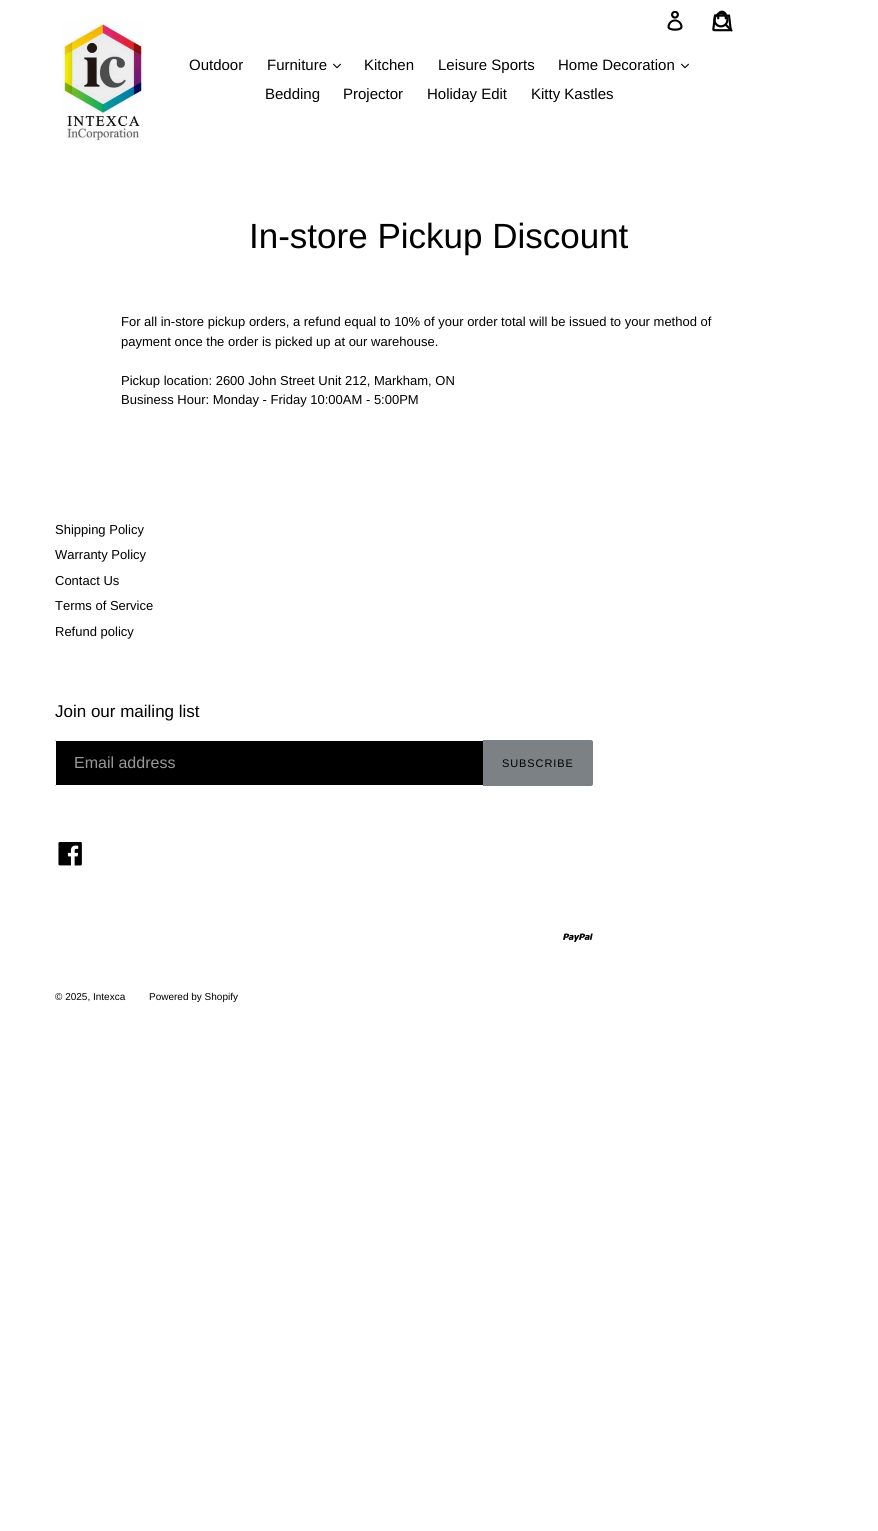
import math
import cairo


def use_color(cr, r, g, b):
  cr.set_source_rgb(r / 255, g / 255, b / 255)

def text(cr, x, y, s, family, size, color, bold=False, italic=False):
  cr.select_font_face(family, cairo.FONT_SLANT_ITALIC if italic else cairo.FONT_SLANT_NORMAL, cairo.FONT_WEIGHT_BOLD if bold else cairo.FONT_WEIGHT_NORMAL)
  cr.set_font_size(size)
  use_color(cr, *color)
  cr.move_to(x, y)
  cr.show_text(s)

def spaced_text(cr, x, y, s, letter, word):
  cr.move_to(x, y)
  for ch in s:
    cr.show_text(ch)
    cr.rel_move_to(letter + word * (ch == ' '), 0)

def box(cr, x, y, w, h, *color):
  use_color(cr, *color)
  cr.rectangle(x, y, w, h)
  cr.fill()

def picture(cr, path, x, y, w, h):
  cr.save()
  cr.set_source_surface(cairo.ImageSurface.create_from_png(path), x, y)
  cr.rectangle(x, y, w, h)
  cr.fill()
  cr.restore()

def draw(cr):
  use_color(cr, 255, 255, 255)
  cr.paint()
  picture(cr, "img_01.png", 62, 22, 82, 119)
  picture(cr, "img_02.png", 333, 63, 8, 6)
  picture(cr, "img_02.png", 681, 63, 8, 6)
  picture(cr, "img_03.png", 667, 11, 16, 20)
  picture(cr, "img_04.png", 712, 10, 20, 22)
  picture(cr, "img_05.png", 713, 12, 20, 20)
  use_color(cr, 0, 0, 0)
  cr.new_path()
  cr.move_to(57, 740)
  cr.line_to(483, 740)
  cr.line_to(483, 786)
  cr.line_to(57, 786)
  cr.curve_to(56, 786, 55, 785, 55, 784)
  cr.line_to(55, 742)
  cr.curve_to(55, 741, 56, 740, 57, 740)
  cr.close_path()
  cr.fill()
  box(cr, 56, 740, 427, 1, 255, 255, 255)
  box(cr, 56, 785, 427, 1, 255, 255, 255)
  box(cr, 55, 741, 1, 44, 255, 255, 255)
  use_color(cr, 124, 129, 133)
  cr.new_path()
  cr.move_to(483, 740)
  cr.line_to(591, 740)
  cr.curve_to(592, 740, 593, 741, 593, 742)
  cr.line_to(593, 784)
  cr.curve_to(593, 785, 592, 786, 591, 786)
  cr.line_to(483, 786)
  cr.close_path()
  cr.fill()
  picture(cr, "img_06.png", 58, 842, 24, 24)
  picture(cr, "img_07.png", 563, 933, 30, 9)
  text(cr, 189, 70, "Outdoor", "Liberation Sans", 15, (0, 0, 0))
  text(cr, 267, 70, "Furniture", "Liberation Sans", 15, (0, 0, 0))
  text(cr, 364, 70, "Kitchen", "Liberation Sans", 15, (0, 0, 0))
  text(cr, 438, 70, "Leisure Sports", "Liberation Sans", 15, (0, 0, 0))
  text(cr, 558, 70, "Home Decoration", "Liberation Sans", 15, (0, 0, 0))
  text(cr, 265, 99, "Bedding", "Liberation Sans", 15, (0, 0, 0))
  text(cr, 343, 99, "Projector", "Liberation Sans", 15, (0, 0, 0))
  text(cr, 427, 99, "Holiday Edit", "Liberation Sans", 15, (0, 0, 0))
  text(cr, 531, 99, "Kitty Kastles", "Liberation Sans", 15, (0, 0, 0))
  text(cr, 249, 248, "In-store Pickup Discount", "Liberation Sans", 35, (0, 0, 0))
  text(cr, 121, 326, "For all in-store pickup orders, a refund equal to 10% of your order total will be issued to your method of", "Liberation Sans", 13, (0, 0, 0))
  text(cr, 121, 346, "payment once the order is picked up at our warehouse.", "Liberation Sans", 13, (0, 0, 0))
  text(cr, 121, 385, "Pickup location: 2600 John Street Unit 212, Markham, ON", "Liberation Sans", 13, (0, 0, 0))
  text(cr, 121, 404, "Business Hour: Monday - Friday 10:00AM - 5:00PM", "Liberation Sans", 13, (0, 0, 0))
  text(cr, 55, 534, "Shipping Policy", "Liberation Sans", 13, (0, 0, 0))
  text(cr, 55, 559, "Warranty Policy", "Liberation Sans", 13, (0, 0, 0))
  text(cr, 55, 585, "Contact Us", "Liberation Sans", 13, (0, 0, 0))
  text(cr, 55, 610, "Terms of Service", "Liberation Sans", 13, (0, 0, 0))
  text(cr, 55, 636, "Refund policy", "Liberation Sans", 13, (0, 0, 0))
  text(cr, 55, 717, "Join our mailing list", "Liberation Sans", 17, (0, 0, 0))
  text(cr, 74, 768, "Email address", "Liberation Sans", 16, (153, 153, 153))
  cr.set_font_size(11)
  use_color(cr, 0, 0, 0)
  spaced_text(cr, 502, 767, "SUBSCRIBE", 0.9, 0)
  text(cr, 55, 1000, "© 2025, Intexca", "Liberation Sans", 10, (0, 0, 0))
  text(cr, 149, 1000, "Powered by Shopify", "Liberation Sans", 10, (0, 0, 0))


surface = cairo.ImageSurface(cairo.FORMAT_RGB24, 878, 1531)
cr = cairo.Context(surface)
options = cairo.FontOptions()
options.set_hint_metrics(cairo.HINT_METRICS_OFF)
options.set_hint_style(cairo.HINT_STYLE_NONE)
cr.set_font_options(options)
cr.set_miter_limit(4)
draw(cr)
surface.write_to_png("out.png")
